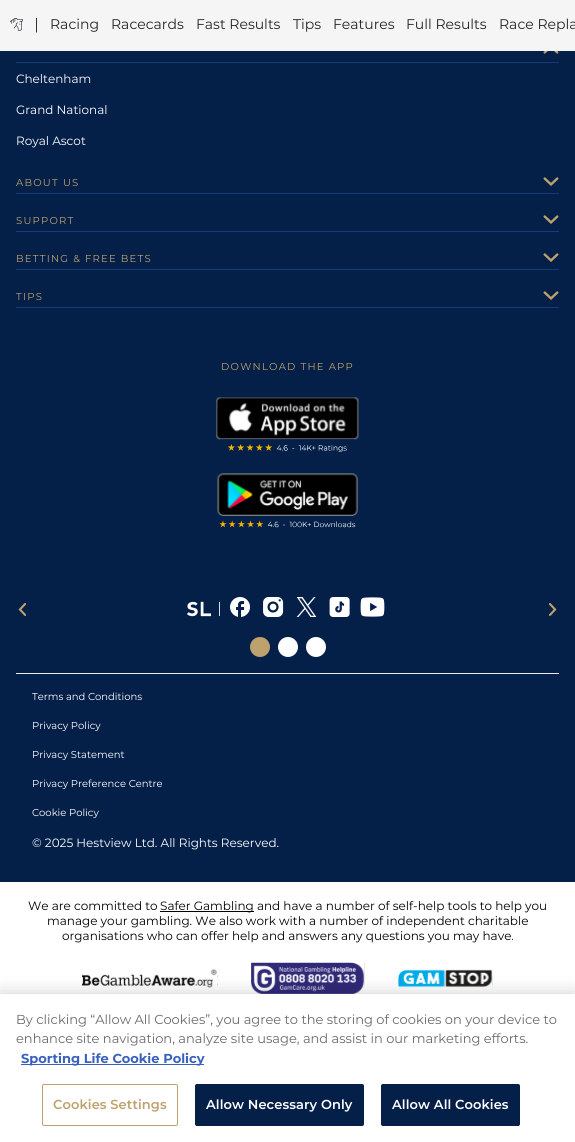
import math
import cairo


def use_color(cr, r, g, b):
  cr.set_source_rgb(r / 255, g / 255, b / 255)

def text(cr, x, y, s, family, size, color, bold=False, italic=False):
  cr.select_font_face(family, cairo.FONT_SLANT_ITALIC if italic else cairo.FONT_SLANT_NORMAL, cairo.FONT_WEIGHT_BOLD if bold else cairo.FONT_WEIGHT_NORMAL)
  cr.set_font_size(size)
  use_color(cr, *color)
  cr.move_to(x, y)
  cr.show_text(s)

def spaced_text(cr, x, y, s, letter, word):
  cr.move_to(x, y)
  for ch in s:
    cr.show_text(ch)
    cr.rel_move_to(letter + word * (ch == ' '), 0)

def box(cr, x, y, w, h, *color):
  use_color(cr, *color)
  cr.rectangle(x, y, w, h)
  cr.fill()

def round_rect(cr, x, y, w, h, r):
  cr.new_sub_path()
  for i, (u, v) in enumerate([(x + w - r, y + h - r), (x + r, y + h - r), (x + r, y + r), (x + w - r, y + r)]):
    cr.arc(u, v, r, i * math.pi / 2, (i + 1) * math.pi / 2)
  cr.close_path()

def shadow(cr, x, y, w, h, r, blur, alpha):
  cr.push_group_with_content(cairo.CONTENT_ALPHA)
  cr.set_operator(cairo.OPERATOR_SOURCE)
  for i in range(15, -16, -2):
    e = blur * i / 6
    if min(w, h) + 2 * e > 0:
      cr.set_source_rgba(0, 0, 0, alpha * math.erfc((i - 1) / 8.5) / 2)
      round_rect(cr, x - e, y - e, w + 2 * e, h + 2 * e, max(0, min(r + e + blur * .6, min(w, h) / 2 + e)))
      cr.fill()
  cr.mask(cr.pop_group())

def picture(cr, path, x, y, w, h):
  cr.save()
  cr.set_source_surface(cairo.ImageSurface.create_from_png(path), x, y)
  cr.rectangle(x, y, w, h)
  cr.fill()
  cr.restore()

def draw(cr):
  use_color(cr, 4, 32, 73)
  cr.paint()
  box(cr, 0, 0, 575, 51, 245, 245, 245)
  picture(cr, "img_01.png", 10, 18, 13, 13)
  box(cr, 16, 62, 543, 1, 22, 58, 122)
  picture(cr, "img_02.png", 543, 51, 16, 3)
  box(cr, 16, 193, 543, 1, 22, 58, 122)
  picture(cr, "img_03.png", 543, 177, 16, 9)
  box(cr, 16, 231, 543, 1, 22, 58, 122)
  picture(cr, "img_03.png", 543, 215, 16, 9)
  box(cr, 16, 269, 543, 1, 22, 58, 122)
  picture(cr, "img_03.png", 543, 253, 16, 9)
  box(cr, 16, 307, 543, 1, 22, 58, 122)
  picture(cr, "img_03.png", 543, 291, 16, 9)
  picture(cr, "img_04.png", 216, 397, 143, 55)
  picture(cr, "img_05.png", 217, 473, 141, 55)
  box(cr, 16, 673, 543, 1, 234, 234, 234)
  picture(cr, "img_06.png", 18, 603, 9, 13)
  picture(cr, "img_07.png", 187, 601, 24, 16)
  box(cr, 219, 602, 1, 14, 217, 222, 228)
  picture(cr, "img_08.png", 230, 597, 20, 20)
  picture(cr, "img_09.png", 263, 597, 21, 20)
  picture(cr, "img_10.png", 296, 597, 21, 20)
  picture(cr, "img_11.png", 329, 597, 21, 20)
  picture(cr, "img_12.png", 360, 597, 25, 20)
  picture(cr, "img_13.png", 548, 603, 9, 13)
  use_color(cr, 190, 162, 109)
  cr.arc(260, 647, 10, 0, 2 * math.pi)
  cr.fill()
  use_color(cr, 255, 255, 255)
  cr.arc(288, 647, 10, 0, 2 * math.pi)
  cr.fill()
  cr.arc(316, 647, 10, 0, 2 * math.pi)
  cr.fill()
  box(cr, 0, 882, 575, 112, 255, 255, 255)
  box(cr, 160, 911, 94, 1, 0, 0, 0)
  picture(cr, "img_14.png", 82, 969, 136, 19)
  picture(cr, "img_15.png", 251, 962, 114, 32)
  picture(cr, "img_16.png", 398, 969, 95, 19)
  use_color(cr, 0, 0, 0)
  shadow(cr, 0, 994, 575, 148, 0, 9, 0.2)
  box(cr, 0, 994, 575, 148, 255, 255, 255)
  box(cr, 21, 1064, 183, 1, 56, 96, 190)
  round_rect(cr, 42.5, 1084.5, 135, 41, 1.5)
  use_color(cr, 190, 162, 109)
  cr.set_line_width(1)
  cr.stroke()
  use_color(cr, 4, 32, 73)
  round_rect(cr, 195.5, 1084.5, 168, 41, 1.5)
  cr.fill_preserve()
  cr.stroke()
  round_rect(cr, 381.5, 1084.5, 138, 41, 1.5)
  cr.fill_preserve()
  cr.stroke()
  text(cr, 35, 29, "|", "Liberation Serif", 16, (0, 0, 0))
  text(cr, 50, 29, "Racing", "Montserrat", 14, (37, 37, 37))
  text(cr, 111, 29, "Racecards", "Montserrat", 14, (37, 37, 37))
  text(cr, 196, 29, "Fast Results", "Montserrat", 14, (37, 37, 37))
  text(cr, 293, 29, "Tips", "Montserrat", 14, (37, 37, 37))
  text(cr, 333, 29, "Features", "Montserrat", 14, (37, 37, 37))
  text(cr, 406, 29, "Full Results", "Montserrat", 14, (37, 37, 37))
  text(cr, 499, 29, "Race Repla", "Montserrat", 14, (37, 37, 37))
  text(cr, 16, 83, "Cheltenham", "Montserrat", 12, (255, 255, 255))
  text(cr, 16, 114, "Grand National", "Montserrat", 12, (255, 255, 255))
  text(cr, 16, 145, "Royal Ascot", "Montserrat", 12, (255, 255, 255))
  cr.set_font_size(10)
  use_color(cr, 190, 162, 109)
  spaced_text(cr, 16, 186, "ABOUT US", 1.25, 0)
  spaced_text(cr, 16, 224, "SUPPORT", 1.25, 0)
  spaced_text(cr, 16, 262, "BETTING & FREE BETS", 1.25, 0)
  spaced_text(cr, 16, 300, "TIPS", 1.25, 0)
  spaced_text(cr, 221, 370, "DOWNLOAD THE APP", 1.25, 0)
  text(cr, 32, 700, "Terms and Conditions", "Montserrat", 10, (255, 255, 255))
  text(cr, 32, 729, "Privacy Policy", "Montserrat", 10, (255, 255, 255))
  text(cr, 32, 758, "Privacy Statement", "Montserrat", 10, (255, 255, 255))
  text(cr, 32, 787, "Privacy Preference Centre", "Montserrat", 10, (255, 255, 255))
  text(cr, 32, 816, "Cookie Policy", "Montserrat", 10, (255, 255, 255))
  text(cr, 32, 847, "© 2025 Hestview Ltd. All Rights Reserved.", "Montserrat", 12, (255, 255, 255))
  text(cr, 28, 910, "We are committed to", "Montserrat", 12, (0, 0, 0))
  text(cr, 160, 910, "Safer Gambling and have a number of self-help tools to help you", "Montserrat", 12, (0, 0, 0))
  text(cr, 47, 925, "manage your gambling. We also work with a number of independent charitable", "Montserrat", 12, (0, 0, 0))
  text(cr, 62, 940, "organisations who can offer help and answers any questions you may have.", "Montserrat", 12, (0, 0, 0))
  text(cr, 16, 1024, "By clicking “Allow All Cookies”, you agree to the storing of cookies on your device to", "Montserrat", 13, (105, 105, 105))
  text(cr, 16, 1043, "enhance site navigation, analyze site usage, and assist in our marketing efforts.", "Montserrat", 13, (105, 105, 105))
  text(cr, 21, 1063, "Sporting Life Cookie Policy", "Montserrat", 13, (56, 96, 190), bold=True)
  cr.select_font_face("Montserrat SemiBold")
  use_color(cr, 190, 162, 109)
  spaced_text(cr, 53, 1109, "Cookies Settings", 0.1, 0)
  use_color(cr, 255, 255, 255)
  spaced_text(cr, 206, 1109, "Allow Necessary Only", 0.1, 0)
  spaced_text(cr, 392, 1109, "Allow All Cookies", 0.1, 0)


surface = cairo.ImageSurface(cairo.FORMAT_RGB24, 575, 1142)
cr = cairo.Context(surface)
options = cairo.FontOptions()
options.set_hint_metrics(cairo.HINT_METRICS_OFF)
options.set_hint_style(cairo.HINT_STYLE_NONE)
cr.set_font_options(options)
cr.set_miter_limit(4)
draw(cr)
surface.write_to_png("out.png")
